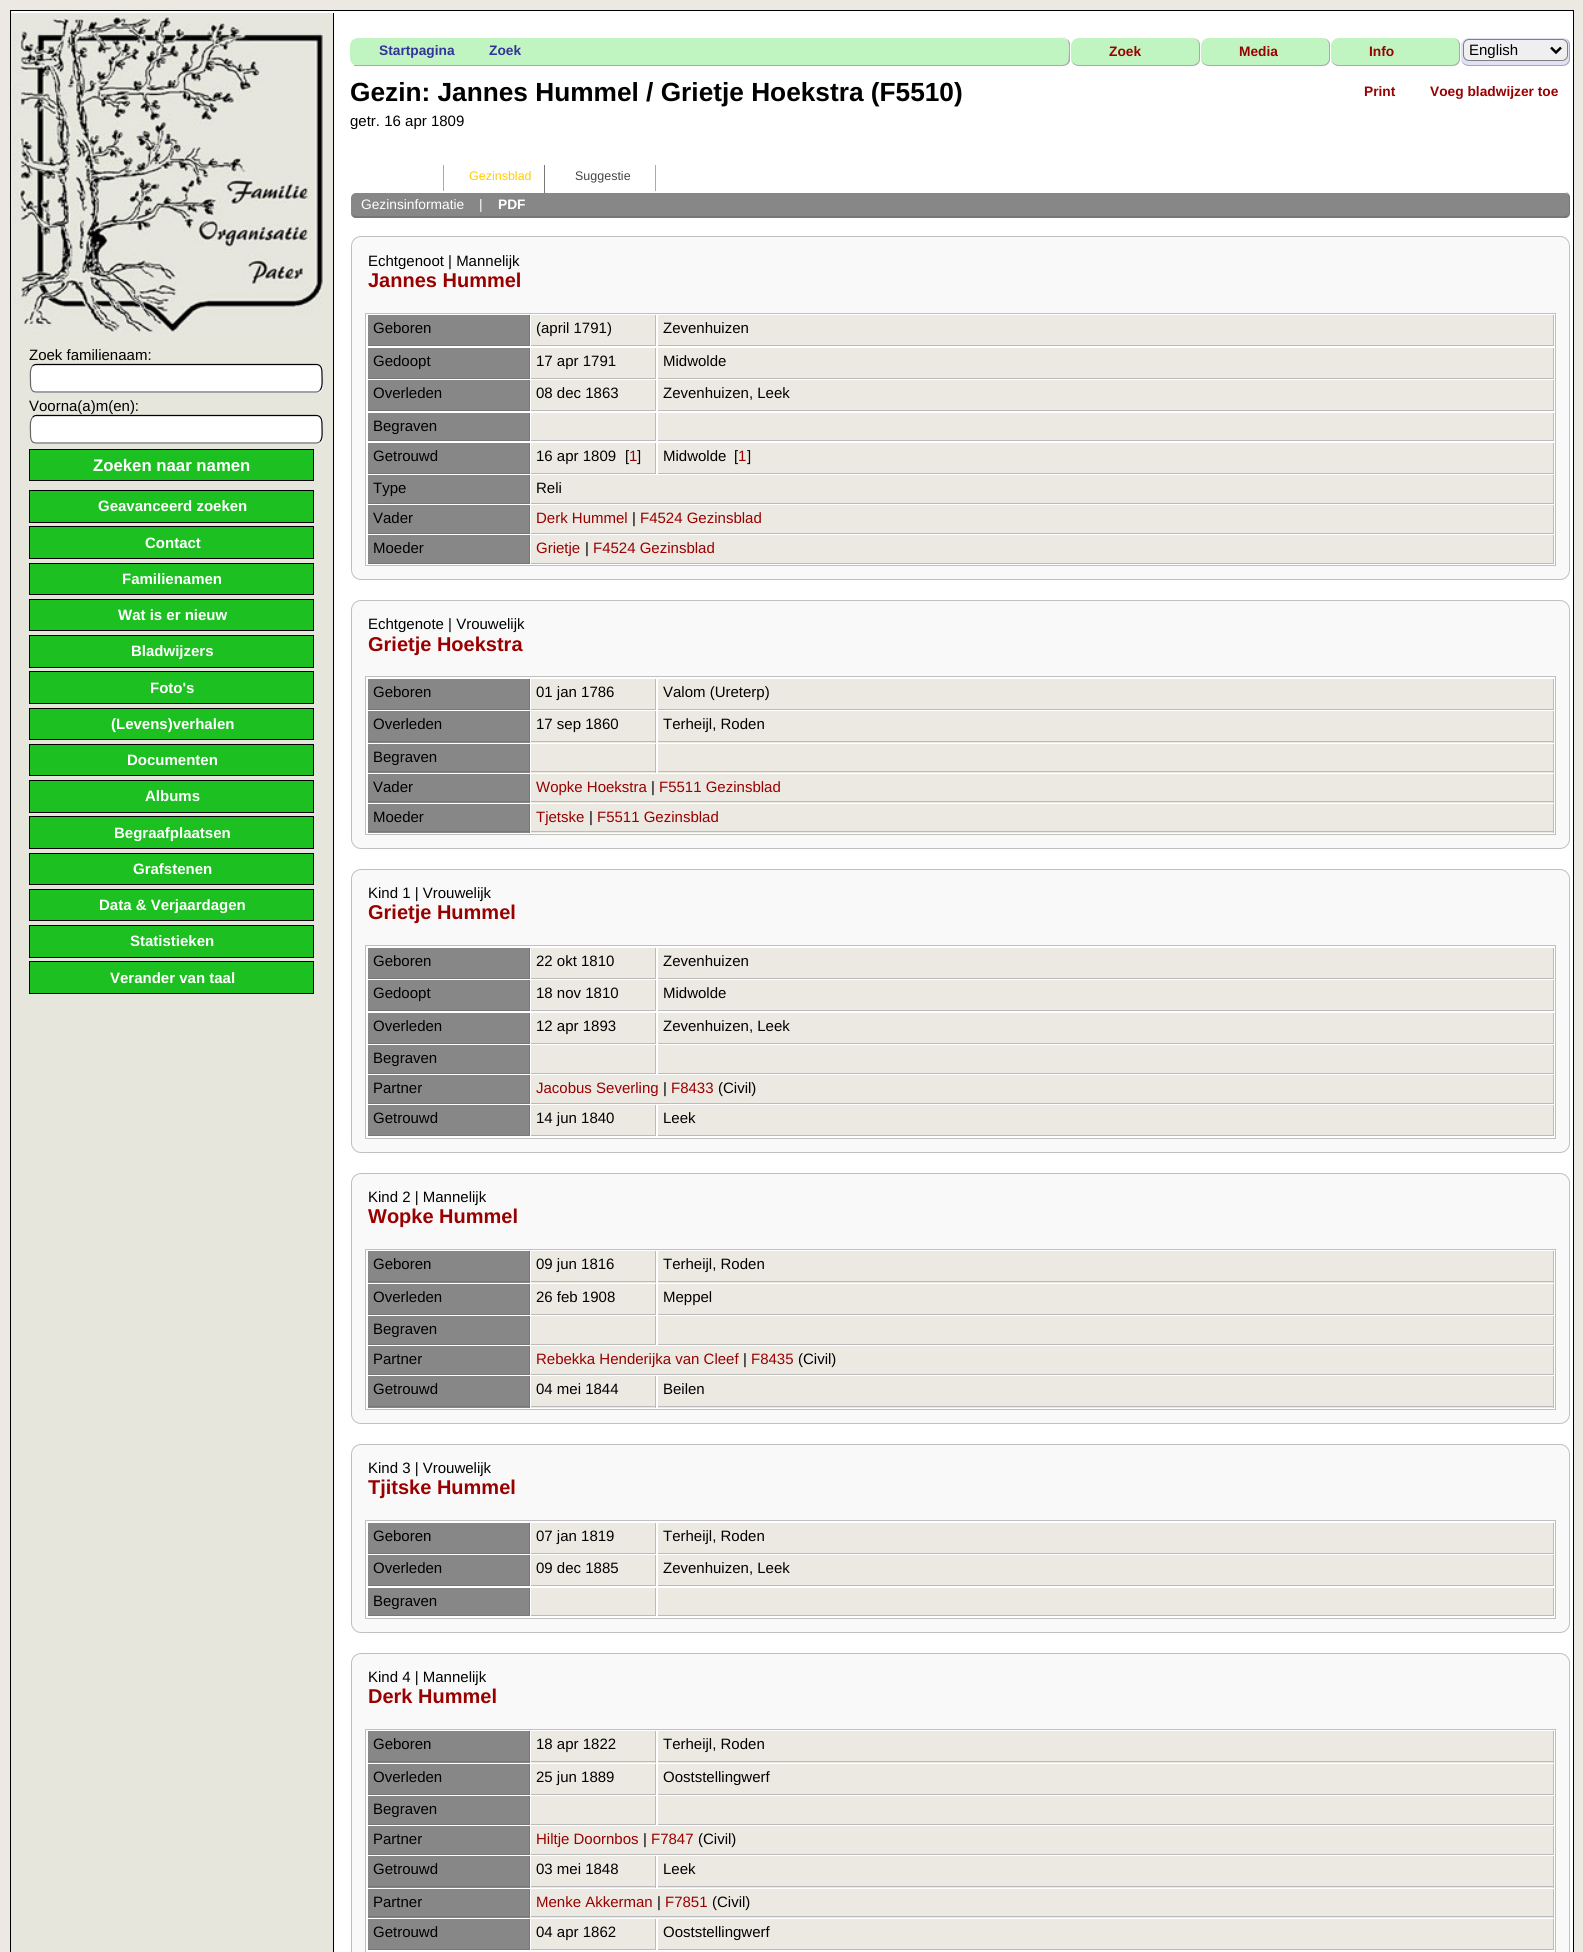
import math
import cairo


def use_color(cr, r, g, b):
  cr.set_source_rgb(r / 255, g / 255, b / 255)

def text(cr, x, y, s, family, size, color, bold=False, italic=False):
  cr.select_font_face(family, cairo.FONT_SLANT_ITALIC if italic else cairo.FONT_SLANT_NORMAL, cairo.FONT_WEIGHT_BOLD if bold else cairo.FONT_WEIGHT_NORMAL)
  cr.set_font_size(size)
  use_color(cr, *color)
  cr.move_to(x, y)
  cr.show_text(s)

def box(cr, x, y, w, h, *color):
  use_color(cr, *color)
  cr.rectangle(x, y, w, h)
  cr.fill()

def round_rect(cr, x, y, w, h, r):
  cr.new_sub_path()
  for i, (u, v) in enumerate([(x + w - r, y + h - r), (x + r, y + h - r), (x + r, y + r), (x + w - r, y + r)]):
    cr.arc(u, v, r, i * math.pi / 2, (i + 1) * math.pi / 2)
  cr.close_path()

def picture(cr, path, x, y, w, h):
  cr.save()
  cr.set_source_surface(cairo.ImageSurface.create_from_png(path), x, y)
  cr.rectangle(x, y, w, h)
  cr.fill()
  cr.restore()

def draw(cr):
  use_color(cr, 235, 233, 225)
  cr.paint()
  box(cr, 11, 11, 1562, 1941, 255, 255, 255)
  box(cr, 10, 10, 1564, 1, 0, 0, 0)
  box(cr, 1573, 10, 1, 1942, 0, 0, 0)
  box(cr, 10, 10, 1, 1942, 0, 0, 0)
  box(cr, 11, 13, 322, 1939, 231, 230, 221)
  box(cr, 333, 13, 1, 1939, 0, 0, 0)
  picture(cr, "img_01.png", 12, 14, 312, 320)
  use_color(cr, 255, 255, 255)
  round_rect(cr, 30, 364, 293, 29, 6)
  cr.fill()
  cr.new_path()
  cr.move_to(32.5, 366)
  cr.curve_to(33.5, 365, 35, 364.5, 36, 364.5)
  cr.line_to(316, 364.5)
  cr.curve_to(322.5, 364.5, 322, 371, 322, 375.5)
  cr.curve_to(322, 379, 323, 387, 320, 390)
  use_color(cr, 0, 0, 0)
  cr.set_line_width(1.2)
  cr.stroke()
  cr.new_path()
  cr.move_to(320, 390)
  cr.curve_to(319, 391.5, 317.5, 392, 316, 392)
  cr.line_to(36, 392)
  cr.curve_to(30, 392, 30.5, 385, 30.5, 381)
  cr.curve_to(30.5, 377, 29.5, 369, 32.5, 366)
  use_color(cr, 102, 102, 102)
  cr.stroke()
  use_color(cr, 255, 255, 255)
  round_rect(cr, 30, 415, 293, 29, 6)
  cr.fill()
  cr.new_path()
  cr.move_to(32.5, 417.5)
  cr.curve_to(33.5, 416, 35, 415.5, 36, 415.5)
  cr.line_to(316, 415.5)
  cr.curve_to(322.5, 415.5, 322, 422.5, 322, 426.5)
  cr.curve_to(322, 430.5, 323, 438.5, 320, 441.5)
  use_color(cr, 0, 0, 0)
  cr.stroke()
  cr.new_path()
  cr.move_to(320, 441.5)
  cr.curve_to(319, 442.5, 317.5, 443, 316, 443)
  cr.line_to(36, 443)
  cr.curve_to(30, 443, 30.5, 436.5, 30.5, 432)
  cr.curve_to(30.5, 428.5, 29.5, 420.5, 32.5, 417.5)
  use_color(cr, 102, 102, 102)
  cr.stroke()
  use_color(cr, 28, 192, 32)
  cr.rectangle(29.5, 449.5, 284, 31)
  cr.fill_preserve()
  use_color(cr, 0, 0, 0)
  cr.set_line_width(1)
  cr.stroke()
  use_color(cr, 28, 192, 32)
  cr.rectangle(29.5, 490.5, 284, 32)
  cr.fill_preserve()
  use_color(cr, 0, 0, 0)
  cr.stroke()
  use_color(cr, 28, 192, 32)
  cr.rectangle(29.5, 526.5, 284, 32)
  cr.fill_preserve()
  use_color(cr, 0, 0, 0)
  cr.stroke()
  use_color(cr, 28, 192, 32)
  cr.rectangle(29.5, 563.5, 284, 31)
  cr.fill_preserve()
  use_color(cr, 0, 0, 0)
  cr.stroke()
  use_color(cr, 28, 192, 32)
  cr.rectangle(29.5, 599.5, 284, 31)
  cr.fill_preserve()
  use_color(cr, 0, 0, 0)
  cr.stroke()
  use_color(cr, 28, 192, 32)
  cr.rectangle(29.5, 635.5, 284, 32)
  cr.fill_preserve()
  use_color(cr, 0, 0, 0)
  cr.stroke()
  use_color(cr, 28, 192, 32)
  cr.rectangle(29.5, 671.5, 284, 32)
  cr.fill_preserve()
  use_color(cr, 0, 0, 0)
  cr.stroke()
  use_color(cr, 28, 192, 32)
  cr.rectangle(29.5, 708.5, 284, 31)
  cr.fill_preserve()
  use_color(cr, 0, 0, 0)
  cr.stroke()
  use_color(cr, 28, 192, 32)
  cr.rectangle(29.5, 744.5, 284, 31)
  cr.fill_preserve()
  use_color(cr, 0, 0, 0)
  cr.stroke()
  use_color(cr, 28, 192, 32)
  cr.rectangle(29.5, 780.5, 284, 32)
  cr.fill_preserve()
  use_color(cr, 0, 0, 0)
  cr.stroke()
  use_color(cr, 28, 192, 32)
  cr.rectangle(29.5, 816.5, 284, 32)
  cr.fill_preserve()
  use_color(cr, 0, 0, 0)
  cr.stroke()
  use_color(cr, 28, 192, 32)
  cr.rectangle(29.5, 853.5, 284, 31)
  cr.fill_preserve()
  use_color(cr, 0, 0, 0)
  cr.stroke()
  use_color(cr, 28, 192, 32)
  cr.rectangle(29.5, 889.5, 284, 31)
  cr.fill_preserve()
  use_color(cr, 0, 0, 0)
  cr.stroke()
  use_color(cr, 28, 192, 32)
  cr.rectangle(29.5, 925.5, 284, 32)
  cr.fill_preserve()
  use_color(cr, 0, 0, 0)
  cr.stroke()
  use_color(cr, 28, 192, 32)
  cr.rectangle(29.5, 961.5, 284, 32)
  cr.fill_preserve()
  use_color(cr, 0, 0, 0)
  cr.stroke()
  use_color(cr, 192, 245, 193)
  round_rect(cr, 350, 38, 1221, 28, 8)
  cr.fill()
  box(cr, 354, 65, 702, 1, 170, 170, 170)
  box(cr, 1062, 38, 509, 28, 255, 255, 255)
  use_color(cr, 192, 245, 193)
  cr.new_path()
  cr.move_to(1056, 38)
  cr.line_to(1062, 38)
  cr.curve_to(1066.5, 38, 1070, 41.5, 1070, 46)
  cr.line_to(1070, 58)
  cr.curve_to(1070, 62.5, 1066.5, 66, 1062, 66)
  cr.line_to(1056, 66)
  cr.close_path()
  cr.fill()
  use_color(cr, 170, 170, 170)
  cr.set_fill_rule(cairo.FILL_RULE_EVEN_ODD)
  cr.new_path()
  cr.move_to(1056, 37.5)
  cr.curve_to(1061.5, 37.5, 1068.5, 36.5, 1070, 43.5)
  cr.line_to(1070, 60.5)
  cr.curve_to(1068.5, 67, 1061.5, 66, 1056, 66)
  cr.close_path()
  cr.move_to(1056, 37.5)
  cr.line_to(1064, 37.5)
  cr.curve_to(1070, 39, 1069, 47, 1069, 52)
  cr.line_to(1068.5, 60)
  cr.curve_to(1067.5, 66, 1061, 65, 1056, 65)
  cr.close_path()
  cr.fill()
  use_color(cr, 192, 245, 193)
  round_rect(cr, 1071, 38, 129, 28, 8)
  cr.fill()
  use_color(cr, 170, 170, 170)
  cr.new_path()
  cr.move_to(1079, 38)
  cr.line_to(1192, 38)
  cr.curve_to(1197, 38, 1200, 41, 1200, 45)
  cr.line_to(1200, 59)
  cr.curve_to(1200, 63, 1197, 66, 1192, 66)
  cr.line_to(1079, 66)
  cr.curve_to(1075, 66, 1071, 63, 1071, 59)
  cr.line_to(1071, 45)
  cr.curve_to(1071, 41, 1075, 38, 1079, 38)
  cr.close_path()
  cr.move_to(1079, 38)
  cr.line_to(1192, 38)
  cr.curve_to(1196, 38, 1199, 41, 1199, 45)
  cr.line_to(1199, 59)
  cr.curve_to(1199, 62, 1196, 65, 1192, 65)
  cr.line_to(1079, 65)
  cr.curve_to(1075, 65, 1071, 62, 1071, 59)
  cr.line_to(1071, 45)
  cr.curve_to(1071, 41, 1075, 38, 1079, 38)
  cr.close_path()
  cr.fill()
  use_color(cr, 192, 245, 193)
  round_rect(cr, 1201, 38, 129, 28, 8)
  cr.fill()
  use_color(cr, 170, 170, 170)
  cr.new_path()
  cr.move_to(1209, 38)
  cr.line_to(1322, 38)
  cr.curve_to(1327, 38, 1330, 41, 1330, 45)
  cr.line_to(1330, 59)
  cr.curve_to(1330, 63, 1327, 66, 1322, 66)
  cr.line_to(1209, 66)
  cr.curve_to(1205, 66, 1201, 63, 1201, 59)
  cr.line_to(1201, 45)
  cr.curve_to(1201, 41, 1205, 38, 1209, 38)
  cr.close_path()
  cr.move_to(1209, 38)
  cr.line_to(1322, 38)
  cr.curve_to(1326, 38, 1329, 41, 1329, 45)
  cr.line_to(1329, 59)
  cr.curve_to(1329, 62, 1326, 65, 1322, 65)
  cr.line_to(1209, 65)
  cr.curve_to(1205, 65, 1201, 62, 1201, 59)
  cr.line_to(1201, 45)
  cr.curve_to(1201, 41, 1205, 38, 1209, 38)
  cr.close_path()
  cr.fill()
  use_color(cr, 192, 245, 193)
  round_rect(cr, 1331, 38, 129, 28, 8)
  cr.fill()
  use_color(cr, 170, 170, 170)
  cr.new_path()
  cr.move_to(1339, 38)
  cr.line_to(1452, 38)
  cr.curve_to(1457, 38, 1460, 41, 1460, 45)
  cr.line_to(1460, 59)
  cr.curve_to(1460, 63, 1457, 66, 1452, 66)
  cr.line_to(1339, 66)
  cr.curve_to(1335, 66, 1331, 63, 1331, 59)
  cr.line_to(1331, 45)
  cr.curve_to(1331, 41, 1335, 38, 1339, 38)
  cr.close_path()
  cr.move_to(1339, 38)
  cr.line_to(1452, 38)
  cr.curve_to(1456, 38, 1459, 41, 1459, 45)
  cr.line_to(1459, 59)
  cr.curve_to(1459, 62, 1456, 65, 1452, 65)
  cr.line_to(1339, 65)
  cr.curve_to(1335, 65, 1331, 62, 1331, 59)
  cr.line_to(1331, 45)
  cr.curve_to(1331, 41, 1335, 38, 1339, 38)
  cr.close_path()
  cr.fill()
  use_color(cr, 224, 224, 247)
  round_rect(cr, 1461, 38, 109, 28, 8)
  cr.fill()
  use_color(cr, 170, 170, 170)
  cr.new_path()
  cr.move_to(1469, 38)
  cr.line_to(1562, 38)
  cr.curve_to(1567, 38, 1570, 41, 1570, 45)
  cr.line_to(1570, 59)
  cr.curve_to(1570, 63, 1567, 66, 1562, 66)
  cr.line_to(1469, 66)
  cr.curve_to(1465, 66, 1461, 63, 1461, 59)
  cr.line_to(1461, 45)
  cr.curve_to(1461, 41, 1465, 38, 1469, 38)
  cr.close_path()
  cr.move_to(1469, 38)
  cr.line_to(1562, 38)
  cr.curve_to(1566, 38, 1569, 41, 1569, 45)
  cr.line_to(1569, 59)
  cr.curve_to(1569, 62, 1566, 65, 1562, 65)
  cr.line_to(1469, 65)
  cr.curve_to(1465, 65, 1461, 62, 1461, 59)
  cr.line_to(1461, 45)
  cr.curve_to(1461, 41, 1465, 38, 1469, 38)
  cr.close_path()
  cr.fill()
  use_color(cr, 239, 239, 239)
  round_rect(cr, 1463.5, 39.5, 104, 21, 5.5)
  cr.fill_preserve()
  use_color(cr, 128, 128, 128)
  cr.stroke()
  cr.new_path()
  cr.move_to(1551, 47.5)
  cr.line_to(1556, 52.5)
  cr.line_to(1561, 47.5)
  use_color(cr, 0, 0, 0)
  cr.set_line_width(2.5)
  cr.stroke()
  box(cr, 443, 165, 1, 26, 170, 170, 170)
  use_color(cr, 135, 135, 135)
  round_rect(cr, 351, 193, 1219, 25, 5)
  cr.fill()
  use_color(cr, 119, 119, 119)
  cr.new_path()
  cr.move_to(356, 192)
  cr.line_to(1565, 192)
  cr.curve_to(1568, 192, 1570, 195, 1570, 198)
  cr.line_to(1570, 212)
  cr.curve_to(1570, 215, 1568, 218, 1565, 218)
  cr.line_to(356, 218)
  cr.curve_to(353, 218, 351, 215, 351, 212)
  cr.line_to(351, 198)
  cr.curve_to(351, 195, 353, 192, 356, 192)
  cr.close_path()
  cr.move_to(356, 192)
  cr.line_to(1565, 192)
  cr.curve_to(1567, 192, 1569, 195, 1569, 198)
  cr.line_to(1569, 212)
  cr.curve_to(1569, 215, 1567, 216, 1565, 216)
  cr.line_to(356, 216)
  cr.curve_to(353, 216, 351, 215, 351, 212)
  cr.line_to(351, 198)
  cr.curve_to(351, 195, 353, 192, 356, 192)
  cr.close_path()
  cr.fill()
  box(cr, 544, 165, 1, 28, 119, 119, 119)
  box(cr, 655, 165, 1, 26, 170, 170, 170)
  use_color(cr, 249, 249, 249)
  round_rect(cr, 351.5, 236.5, 1218, 343, 9.5)
  cr.fill_preserve()
  use_color(cr, 192, 192, 192)
  cr.set_line_width(1)
  cr.stroke()
  use_color(cr, 255, 255, 255)
  cr.rectangle(365.5, 313.5, 1190, 252)
  cr.fill_preserve()
  use_color(cr, 192, 192, 192)
  cr.stroke()
  box(cr, 368, 315, 161, 30, 135, 135, 135)
  box(cr, 529, 315, 1, 31, 119, 119, 119)
  box(cr, 368, 345, 162, 1, 119, 119, 119)
  box(cr, 531, 315, 124, 30, 235, 233, 225)
  box(cr, 655, 315, 1, 31, 187, 187, 187)
  box(cr, 531, 345, 125, 1, 187, 187, 187)
  box(cr, 658, 315, 895, 30, 235, 233, 225)
  box(cr, 1553, 315, 1, 31, 187, 187, 187)
  box(cr, 658, 345, 896, 1, 187, 187, 187)
  box(cr, 368, 348, 161, 30, 135, 135, 135)
  box(cr, 529, 348, 1, 31, 119, 119, 119)
  box(cr, 368, 378, 162, 1, 119, 119, 119)
  box(cr, 531, 348, 124, 30, 235, 233, 225)
  box(cr, 655, 348, 1, 31, 187, 187, 187)
  box(cr, 531, 378, 125, 1, 187, 187, 187)
  box(cr, 658, 348, 895, 30, 235, 233, 225)
  box(cr, 1553, 348, 1, 31, 187, 187, 187)
  box(cr, 658, 378, 896, 1, 187, 187, 187)
  box(cr, 368, 380, 161, 30, 135, 135, 135)
  box(cr, 529, 380, 1, 31, 119, 119, 119)
  box(cr, 368, 410, 162, 1, 119, 119, 119)
  box(cr, 531, 380, 124, 30, 235, 233, 225)
  box(cr, 655, 380, 1, 31, 187, 187, 187)
  box(cr, 531, 410, 125, 1, 187, 187, 187)
  box(cr, 658, 380, 895, 30, 235, 233, 225)
  box(cr, 1553, 380, 1, 31, 187, 187, 187)
  box(cr, 658, 410, 896, 1, 187, 187, 187)
  box(cr, 368, 413, 161, 27, 135, 135, 135)
  box(cr, 529, 413, 1, 28, 119, 119, 119)
  box(cr, 368, 440, 162, 1, 119, 119, 119)
  box(cr, 531, 413, 124, 27, 235, 233, 225)
  box(cr, 655, 413, 1, 28, 187, 187, 187)
  box(cr, 531, 440, 125, 1, 187, 187, 187)
  box(cr, 658, 413, 895, 27, 235, 233, 225)
  box(cr, 1553, 413, 1, 28, 187, 187, 187)
  box(cr, 658, 440, 896, 1, 187, 187, 187)
  box(cr, 368, 443, 161, 30, 135, 135, 135)
  box(cr, 529, 443, 1, 31, 119, 119, 119)
  box(cr, 368, 473, 162, 1, 119, 119, 119)
  box(cr, 531, 443, 124, 30, 235, 233, 225)
  box(cr, 655, 443, 1, 31, 187, 187, 187)
  box(cr, 531, 473, 125, 1, 187, 187, 187)
  box(cr, 658, 443, 895, 30, 235, 233, 225)
  box(cr, 1553, 443, 1, 31, 187, 187, 187)
  box(cr, 658, 473, 896, 1, 187, 187, 187)
  box(cr, 368, 475, 161, 28, 135, 135, 135)
  box(cr, 529, 475, 1, 29, 119, 119, 119)
  box(cr, 368, 503, 162, 1, 119, 119, 119)
  box(cr, 531, 475, 1022, 28, 235, 233, 225)
  box(cr, 1553, 475, 1, 29, 187, 187, 187)
  box(cr, 531, 503, 1023, 1, 187, 187, 187)
  box(cr, 368, 505, 161, 28, 135, 135, 135)
  box(cr, 529, 505, 1, 29, 119, 119, 119)
  box(cr, 368, 533, 162, 1, 119, 119, 119)
  box(cr, 531, 505, 1022, 28, 235, 233, 225)
  box(cr, 1553, 505, 1, 29, 187, 187, 187)
  box(cr, 531, 533, 1023, 1, 187, 187, 187)
  box(cr, 368, 535, 161, 28, 135, 135, 135)
  box(cr, 529, 535, 1, 29, 119, 119, 119)
  box(cr, 368, 563, 162, 1, 119, 119, 119)
  box(cr, 531, 535, 1022, 28, 235, 233, 225)
  box(cr, 1553, 535, 1, 29, 187, 187, 187)
  box(cr, 531, 563, 1023, 1, 187, 187, 187)
  use_color(cr, 249, 249, 249)
  round_rect(cr, 351.5, 600.5, 1218, 248, 9.5)
  cr.fill_preserve()
  use_color(cr, 192, 192, 192)
  cr.stroke()
  use_color(cr, 255, 255, 255)
  cr.rectangle(365.5, 676.5, 1190, 158)
  cr.fill_preserve()
  use_color(cr, 192, 192, 192)
  cr.stroke()
  box(cr, 368, 679, 161, 30, 135, 135, 135)
  box(cr, 529, 679, 1, 31, 119, 119, 119)
  box(cr, 368, 709, 162, 1, 119, 119, 119)
  box(cr, 531, 679, 124, 30, 235, 233, 225)
  box(cr, 655, 679, 1, 31, 187, 187, 187)
  box(cr, 531, 709, 125, 1, 187, 187, 187)
  box(cr, 658, 679, 895, 30, 235, 233, 225)
  box(cr, 1553, 679, 1, 31, 187, 187, 187)
  box(cr, 658, 709, 896, 1, 187, 187, 187)
  box(cr, 368, 711, 161, 32, 135, 135, 135)
  box(cr, 529, 711, 1, 32, 119, 119, 119)
  box(cr, 368, 741, 162, 1, 119, 119, 119)
  box(cr, 531, 711, 124, 32, 235, 233, 225)
  box(cr, 655, 711, 1, 32, 187, 187, 187)
  box(cr, 531, 741, 125, 1, 187, 187, 187)
  box(cr, 658, 711, 895, 32, 235, 233, 225)
  box(cr, 1553, 711, 1, 32, 187, 187, 187)
  box(cr, 658, 741, 896, 1, 187, 187, 187)
  box(cr, 368, 744, 161, 29, 135, 135, 135)
  box(cr, 529, 744, 1, 29, 119, 119, 119)
  box(cr, 368, 771, 162, 1, 119, 119, 119)
  box(cr, 531, 744, 124, 29, 235, 233, 225)
  box(cr, 655, 744, 1, 29, 187, 187, 187)
  box(cr, 531, 771, 125, 1, 187, 187, 187)
  box(cr, 658, 744, 895, 29, 235, 233, 225)
  box(cr, 1553, 744, 1, 29, 187, 187, 187)
  box(cr, 658, 771, 896, 1, 187, 187, 187)
  box(cr, 368, 774, 161, 29, 135, 135, 135)
  box(cr, 529, 774, 1, 29, 119, 119, 119)
  box(cr, 368, 801, 162, 1, 119, 119, 119)
  box(cr, 531, 774, 1022, 29, 235, 233, 225)
  box(cr, 1553, 774, 1, 29, 187, 187, 187)
  box(cr, 531, 801, 1023, 1, 187, 187, 187)
  box(cr, 368, 804, 161, 29, 135, 135, 135)
  box(cr, 529, 804, 1, 29, 119, 119, 119)
  box(cr, 368, 831, 162, 1, 119, 119, 119)
  box(cr, 531, 804, 1022, 29, 235, 233, 225)
  box(cr, 1553, 804, 1, 29, 187, 187, 187)
  box(cr, 531, 831, 1023, 1, 187, 187, 187)
  use_color(cr, 249, 249, 249)
  round_rect(cr, 351.5, 869.5, 1218, 283, 9.5)
  cr.fill_preserve()
  use_color(cr, 192, 192, 192)
  cr.stroke()
  use_color(cr, 255, 255, 255)
  cr.rectangle(365.5, 945.5, 1190, 193)
  cr.fill_preserve()
  use_color(cr, 192, 192, 192)
  cr.stroke()
  box(cr, 368, 948, 161, 30, 135, 135, 135)
  box(cr, 529, 948, 1, 31, 119, 119, 119)
  box(cr, 368, 978, 162, 1, 119, 119, 119)
  box(cr, 531, 948, 124, 30, 235, 233, 225)
  box(cr, 655, 948, 1, 31, 187, 187, 187)
  box(cr, 531, 978, 125, 1, 187, 187, 187)
  box(cr, 658, 948, 895, 30, 235, 233, 225)
  box(cr, 1553, 948, 1, 31, 187, 187, 187)
  box(cr, 658, 978, 896, 1, 187, 187, 187)
  box(cr, 368, 980, 161, 30, 135, 135, 135)
  box(cr, 529, 980, 1, 31, 119, 119, 119)
  box(cr, 368, 1010, 162, 1, 119, 119, 119)
  box(cr, 531, 980, 124, 30, 235, 233, 225)
  box(cr, 655, 980, 1, 31, 187, 187, 187)
  box(cr, 531, 1010, 125, 1, 187, 187, 187)
  box(cr, 658, 980, 895, 30, 235, 233, 225)
  box(cr, 1553, 980, 1, 31, 187, 187, 187)
  box(cr, 658, 1010, 896, 1, 187, 187, 187)
  box(cr, 368, 1013, 161, 30, 135, 135, 135)
  box(cr, 529, 1013, 1, 31, 119, 119, 119)
  box(cr, 368, 1043, 162, 1, 119, 119, 119)
  box(cr, 531, 1013, 124, 30, 235, 233, 225)
  box(cr, 655, 1013, 1, 31, 187, 187, 187)
  box(cr, 531, 1043, 125, 1, 187, 187, 187)
  box(cr, 658, 1013, 895, 30, 235, 233, 225)
  box(cr, 1553, 1013, 1, 31, 187, 187, 187)
  box(cr, 658, 1043, 896, 1, 187, 187, 187)
  box(cr, 368, 1045, 161, 28, 135, 135, 135)
  box(cr, 529, 1045, 1, 29, 119, 119, 119)
  box(cr, 368, 1073, 162, 1, 119, 119, 119)
  box(cr, 531, 1045, 124, 28, 235, 233, 225)
  box(cr, 655, 1045, 1, 29, 187, 187, 187)
  box(cr, 531, 1073, 125, 1, 187, 187, 187)
  box(cr, 658, 1045, 895, 28, 235, 233, 225)
  box(cr, 1553, 1045, 1, 29, 187, 187, 187)
  box(cr, 658, 1073, 896, 1, 187, 187, 187)
  box(cr, 368, 1075, 161, 28, 135, 135, 135)
  box(cr, 529, 1075, 1, 29, 119, 119, 119)
  box(cr, 368, 1103, 162, 1, 119, 119, 119)
  box(cr, 531, 1075, 1022, 28, 235, 233, 225)
  box(cr, 1553, 1075, 1, 29, 187, 187, 187)
  box(cr, 531, 1103, 1023, 1, 187, 187, 187)
  box(cr, 368, 1105, 161, 30, 135, 135, 135)
  box(cr, 529, 1105, 1, 31, 119, 119, 119)
  box(cr, 368, 1135, 162, 1, 119, 119, 119)
  box(cr, 531, 1105, 124, 30, 235, 233, 225)
  box(cr, 655, 1105, 1, 31, 187, 187, 187)
  box(cr, 531, 1135, 125, 1, 187, 187, 187)
  box(cr, 658, 1105, 895, 30, 235, 233, 225)
  box(cr, 1553, 1105, 1, 31, 187, 187, 187)
  box(cr, 658, 1135, 896, 1, 187, 187, 187)
  use_color(cr, 249, 249, 249)
  round_rect(cr, 351.5, 1173.5, 1218, 250, 9.5)
  cr.fill_preserve()
  use_color(cr, 192, 192, 192)
  cr.stroke()
  use_color(cr, 255, 255, 255)
  cr.rectangle(365.5, 1249.5, 1190, 160)
  cr.fill_preserve()
  use_color(cr, 192, 192, 192)
  cr.stroke()
  box(cr, 368, 1251, 161, 32, 135, 135, 135)
  box(cr, 529, 1251, 1, 32, 119, 119, 119)
  box(cr, 368, 1281, 162, 1, 119, 119, 119)
  box(cr, 531, 1251, 124, 32, 235, 233, 225)
  box(cr, 655, 1251, 1, 32, 187, 187, 187)
  box(cr, 531, 1281, 125, 1, 187, 187, 187)
  box(cr, 658, 1251, 895, 32, 235, 233, 225)
  box(cr, 1553, 1251, 1, 32, 187, 187, 187)
  box(cr, 658, 1281, 896, 1, 187, 187, 187)
  box(cr, 368, 1284, 161, 30, 135, 135, 135)
  box(cr, 529, 1284, 1, 31, 119, 119, 119)
  box(cr, 368, 1314, 162, 1, 119, 119, 119)
  box(cr, 531, 1284, 124, 30, 235, 233, 225)
  box(cr, 655, 1284, 1, 31, 187, 187, 187)
  box(cr, 531, 1314, 125, 1, 187, 187, 187)
  box(cr, 658, 1284, 895, 30, 235, 233, 225)
  box(cr, 1553, 1284, 1, 31, 187, 187, 187)
  box(cr, 658, 1314, 896, 1, 187, 187, 187)
  box(cr, 368, 1316, 161, 28, 135, 135, 135)
  box(cr, 529, 1316, 1, 29, 119, 119, 119)
  box(cr, 368, 1344, 162, 1, 119, 119, 119)
  box(cr, 531, 1316, 124, 28, 235, 233, 225)
  box(cr, 655, 1316, 1, 29, 187, 187, 187)
  box(cr, 531, 1344, 125, 1, 187, 187, 187)
  box(cr, 658, 1316, 895, 28, 235, 233, 225)
  box(cr, 1553, 1316, 1, 29, 187, 187, 187)
  box(cr, 658, 1344, 896, 1, 187, 187, 187)
  box(cr, 368, 1346, 161, 28, 135, 135, 135)
  box(cr, 529, 1346, 1, 29, 119, 119, 119)
  box(cr, 368, 1374, 162, 1, 119, 119, 119)
  box(cr, 531, 1346, 1022, 28, 235, 233, 225)
  box(cr, 1553, 1346, 1, 29, 187, 187, 187)
  box(cr, 531, 1374, 1023, 1, 187, 187, 187)
  box(cr, 368, 1376, 161, 32, 135, 135, 135)
  box(cr, 529, 1376, 1, 32, 119, 119, 119)
  box(cr, 368, 1406, 162, 1, 119, 119, 119)
  box(cr, 531, 1376, 124, 32, 235, 233, 225)
  box(cr, 655, 1376, 1, 32, 187, 187, 187)
  box(cr, 531, 1406, 125, 1, 187, 187, 187)
  box(cr, 658, 1376, 895, 32, 235, 233, 225)
  box(cr, 1553, 1376, 1, 32, 187, 187, 187)
  box(cr, 658, 1406, 896, 1, 187, 187, 187)
  use_color(cr, 249, 249, 249)
  round_rect(cr, 351.5, 1444.5, 1218, 188, 9.5)
  cr.fill_preserve()
  use_color(cr, 192, 192, 192)
  cr.stroke()
  use_color(cr, 255, 255, 255)
  cr.rectangle(365.5, 1520.5, 1190, 98)
  cr.fill_preserve()
  use_color(cr, 192, 192, 192)
  cr.stroke()
  box(cr, 368, 1523, 161, 30, 135, 135, 135)
  box(cr, 529, 1523, 1, 31, 119, 119, 119)
  box(cr, 368, 1553, 162, 1, 119, 119, 119)
  box(cr, 531, 1523, 124, 30, 235, 233, 225)
  box(cr, 655, 1523, 1, 31, 187, 187, 187)
  box(cr, 531, 1553, 125, 1, 187, 187, 187)
  box(cr, 658, 1523, 895, 30, 235, 233, 225)
  box(cr, 1553, 1523, 1, 31, 187, 187, 187)
  box(cr, 658, 1553, 896, 1, 187, 187, 187)
  box(cr, 368, 1555, 161, 30, 135, 135, 135)
  box(cr, 529, 1555, 1, 31, 119, 119, 119)
  box(cr, 368, 1585, 162, 1, 119, 119, 119)
  box(cr, 531, 1555, 124, 30, 235, 233, 225)
  box(cr, 655, 1555, 1, 31, 187, 187, 187)
  box(cr, 531, 1585, 125, 1, 187, 187, 187)
  box(cr, 658, 1555, 895, 30, 235, 233, 225)
  box(cr, 1553, 1555, 1, 31, 187, 187, 187)
  box(cr, 658, 1585, 896, 1, 187, 187, 187)
  box(cr, 368, 1588, 161, 27, 135, 135, 135)
  box(cr, 529, 1588, 1, 28, 119, 119, 119)
  box(cr, 368, 1615, 162, 1, 119, 119, 119)
  box(cr, 531, 1588, 124, 27, 235, 233, 225)
  box(cr, 655, 1588, 1, 28, 187, 187, 187)
  box(cr, 531, 1615, 125, 1, 187, 187, 187)
  box(cr, 658, 1588, 895, 27, 235, 233, 225)
  box(cr, 1553, 1588, 1, 28, 187, 187, 187)
  box(cr, 658, 1615, 896, 1, 187, 187, 187)
  use_color(cr, 249, 249, 249)
  round_rect(cr, 351.5, 1653.5, 1218, 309, 9.5)
  cr.fill_preserve()
  use_color(cr, 192, 192, 192)
  cr.stroke()
  use_color(cr, 255, 255, 255)
  cr.rectangle(365.5, 1729.5, 1190, 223)
  cr.fill_preserve()
  use_color(cr, 192, 192, 192)
  cr.stroke()
  box(cr, 368, 1731, 161, 32, 135, 135, 135)
  box(cr, 529, 1731, 1, 32, 119, 119, 119)
  box(cr, 368, 1761, 162, 1, 119, 119, 119)
  box(cr, 531, 1731, 124, 32, 235, 233, 225)
  box(cr, 655, 1731, 1, 32, 187, 187, 187)
  box(cr, 531, 1761, 125, 1, 187, 187, 187)
  box(cr, 658, 1731, 895, 32, 235, 233, 225)
  box(cr, 1553, 1731, 1, 32, 187, 187, 187)
  box(cr, 658, 1761, 896, 1, 187, 187, 187)
  box(cr, 368, 1764, 161, 30, 135, 135, 135)
  box(cr, 529, 1764, 1, 31, 119, 119, 119)
  box(cr, 368, 1794, 162, 1, 119, 119, 119)
  box(cr, 531, 1764, 124, 30, 235, 233, 225)
  box(cr, 655, 1764, 1, 31, 187, 187, 187)
  box(cr, 531, 1794, 125, 1, 187, 187, 187)
  box(cr, 658, 1764, 895, 30, 235, 233, 225)
  box(cr, 1553, 1764, 1, 31, 187, 187, 187)
  box(cr, 658, 1794, 896, 1, 187, 187, 187)
  box(cr, 368, 1796, 161, 28, 135, 135, 135)
  box(cr, 529, 1796, 1, 29, 119, 119, 119)
  box(cr, 368, 1824, 162, 1, 119, 119, 119)
  box(cr, 531, 1796, 124, 28, 235, 233, 225)
  box(cr, 655, 1796, 1, 29, 187, 187, 187)
  box(cr, 531, 1824, 125, 1, 187, 187, 187)
  box(cr, 658, 1796, 895, 28, 235, 233, 225)
  box(cr, 1553, 1796, 1, 29, 187, 187, 187)
  box(cr, 658, 1824, 896, 1, 187, 187, 187)
  box(cr, 368, 1826, 161, 28, 135, 135, 135)
  box(cr, 529, 1826, 1, 29, 119, 119, 119)
  box(cr, 368, 1854, 162, 1, 119, 119, 119)
  box(cr, 531, 1826, 1022, 28, 235, 233, 225)
  box(cr, 1553, 1826, 1, 29, 187, 187, 187)
  box(cr, 531, 1854, 1023, 1, 187, 187, 187)
  box(cr, 368, 1856, 161, 32, 135, 135, 135)
  box(cr, 529, 1856, 1, 32, 119, 119, 119)
  box(cr, 368, 1886, 162, 1, 119, 119, 119)
  box(cr, 531, 1856, 124, 32, 235, 233, 225)
  box(cr, 655, 1856, 1, 32, 187, 187, 187)
  box(cr, 531, 1886, 125, 1, 187, 187, 187)
  box(cr, 658, 1856, 895, 32, 235, 233, 225)
  box(cr, 1553, 1856, 1, 32, 187, 187, 187)
  box(cr, 658, 1886, 896, 1, 187, 187, 187)
  box(cr, 368, 1889, 161, 29, 135, 135, 135)
  box(cr, 529, 1889, 1, 29, 119, 119, 119)
  box(cr, 368, 1916, 162, 1, 119, 119, 119)
  box(cr, 531, 1889, 1022, 29, 235, 233, 225)
  box(cr, 1553, 1889, 1, 29, 187, 187, 187)
  box(cr, 531, 1916, 1023, 1, 187, 187, 187)
  box(cr, 368, 1919, 161, 30, 135, 135, 135)
  box(cr, 529, 1919, 1, 31, 119, 119, 119)
  box(cr, 368, 1949, 162, 1, 119, 119, 119)
  box(cr, 531, 1919, 124, 30, 235, 233, 225)
  box(cr, 655, 1919, 1, 31, 187, 187, 187)
  box(cr, 531, 1949, 125, 1, 187, 187, 187)
  box(cr, 658, 1919, 895, 30, 235, 233, 225)
  box(cr, 1553, 1919, 1, 31, 187, 187, 187)
  box(cr, 658, 1949, 896, 1, 187, 187, 187)
  text(cr, 29, 360, "Zoek familienaam:", "Liberation Sans", 15, (0, 0, 0))
  text(cr, 29, 411, "Voorna(a)m(en):", "Liberation Sans", 15, (0, 0, 0))
  text(cr, 93, 471, "Zoeken naar namen", "Liberation Sans", 16.75, (255, 255, 255), bold=True)
  text(cr, 98, 511, "Geavanceerd zoeken", "Liberation Sans", 15, (255, 255, 255), bold=True)
  text(cr, 145, 548, "Contact", "Liberation Sans", 15, (255, 255, 255), bold=True)
  text(cr, 122, 584, "Familienamen", "Liberation Sans", 15, (255, 255, 255), bold=True)
  text(cr, 118, 620, "Wat is er nieuw", "Liberation Sans", 15, (255, 255, 255), bold=True)
  text(cr, 131, 656, "Bladwijzers", "Liberation Sans", 15, (255, 255, 255), bold=True)
  text(cr, 150, 693, "Foto's", "Liberation Sans", 15, (255, 255, 255), bold=True)
  text(cr, 111, 729, "(Levens)verhalen", "Liberation Sans", 15, (255, 255, 255), bold=True)
  text(cr, 127, 765, "Documenten", "Liberation Sans", 15, (255, 255, 255), bold=True)
  text(cr, 145, 801, "Albums", "Liberation Sans", 15, (255, 255, 255), bold=True)
  text(cr, 114, 838, "Begraafplaatsen", "Liberation Sans", 15, (255, 255, 255), bold=True)
  text(cr, 133, 874, "Grafstenen", "Liberation Sans", 15, (255, 255, 255), bold=True)
  text(cr, 99, 910, "Data & Verjaardagen", "Liberation Sans", 15, (255, 255, 255), bold=True)
  text(cr, 130, 946, "Statistieken", "Liberation Sans", 15, (255, 255, 255), bold=True)
  text(cr, 110, 983, "Verander van taal", "Liberation Sans", 15, (255, 255, 255), bold=True)
  text(cr, 379, 55, "Startpagina", "Liberation Sans", 13.75, (51, 51, 153), bold=True)
  text(cr, 489, 55, "Zoek", "Liberation Sans", 13.75, (51, 51, 153), bold=True)
  text(cr, 1109, 56, "Zoek", "Liberation Sans", 13.75, (153, 0, 0), bold=True)
  text(cr, 1239, 56, "Media", "Liberation Sans", 13.75, (153, 0, 0), bold=True)
  text(cr, 1369, 56, "Info", "Liberation Sans", 13.75, (153, 0, 0), bold=True)
  text(cr, 1469, 55, "English", "Liberation Sans", 15, (0, 0, 0))
  text(cr, 350, 101, "Gezin: Jannes Hummel / Grietje Hoekstra (F5510)", "Liberation Sans", 26.25, (0, 0, 0), bold=True)
  text(cr, 1364, 96, "Print", "Liberation Sans", 13.75, (153, 0, 0), bold=True)
  text(cr, 1430, 96, "Voeg bladwijzer toe", "Liberation Sans", 13.75, (153, 0, 0), bold=True)
  text(cr, 350, 126, "getr. 16 apr 1809", "Liberation Sans", 15, (0, 0, 0))
  text(cr, 469, 180, "Gezinsblad", "Liberation Sans", 12.5, (255, 204, 0))
  text(cr, 575, 180, "Suggestie", "Liberation Sans", 12.5, (68, 68, 68))
  text(cr, 361, 209, "Gezinsinformatie", "Liberation Sans", 13.75, (255, 255, 255))
  text(cr, 479, 209, "|", "Liberation Sans", 13.75, (255, 255, 255))
  text(cr, 498, 209, "PDF", "Liberation Sans", 13.75, (255, 255, 255), bold=True)
  text(cr, 368, 266, "Echtgenoot | Mannelijk", "Liberation Sans", 15, (0, 0, 0))
  text(cr, 368, 287, "Jannes Hummel", "Liberation Sans", 20, (153, 0, 0), bold=True)
  text(cr, 373, 333, "Geboren", "Liberation Sans", 15, (0, 0, 0))
  text(cr, 536, 333, "(april 1791)", "Liberation Sans", 15, (0, 0, 0))
  text(cr, 663, 333, "Zevenhuizen", "Liberation Sans", 15, (0, 0, 0))
  text(cr, 373, 366, "Gedoopt", "Liberation Sans", 15, (0, 0, 0))
  text(cr, 536, 366, "17 apr 1791", "Liberation Sans", 15, (0, 0, 0))
  text(cr, 663, 366, "Midwolde", "Liberation Sans", 15, (0, 0, 0))
  text(cr, 373, 398, "Overleden", "Liberation Sans", 15, (0, 0, 0))
  text(cr, 536, 398, "08 dec 1863", "Liberation Sans", 15, (0, 0, 0))
  text(cr, 663, 398, "Zevenhuizen, Leek", "Liberation Sans", 15, (0, 0, 0))
  text(cr, 373, 431, "Begraven", "Liberation Sans", 15, (0, 0, 0))
  text(cr, 373, 461, "Getrouwd", "Liberation Sans", 15, (0, 0, 0))
  text(cr, 536, 461, "16 apr 1809", "Liberation Sans", 15, (0, 0, 0))
  text(cr, 625, 461, "[", "Liberation Sans", 15, (0, 0, 0))
  text(cr, 629, 461, "1", "Liberation Sans", 15, (153, 0, 0))
  text(cr, 637, 461, "]", "Liberation Sans", 15, (0, 0, 0))
  text(cr, 663, 461, "Midwolde", "Liberation Sans", 15, (0, 0, 0))
  text(cr, 734, 461, "[", "Liberation Sans", 15, (0, 0, 0))
  text(cr, 738, 461, "1", "Liberation Sans", 15, (153, 0, 0))
  text(cr, 747, 461, "]", "Liberation Sans", 15, (0, 0, 0))
  text(cr, 373, 493, "Type", "Liberation Sans", 15, (0, 0, 0))
  text(cr, 536, 493, "Reli", "Liberation Sans", 15, (0, 0, 0))
  text(cr, 373, 523, "Vader", "Liberation Sans", 15, (0, 0, 0))
  text(cr, 536, 523, "Derk Hummel", "Liberation Sans", 15, (153, 0, 0))
  text(cr, 632, 523, "|", "Liberation Sans", 15, (0, 0, 0))
  text(cr, 640, 523, "F4524 Gezinsblad", "Liberation Sans", 15, (153, 0, 0))
  text(cr, 373, 553, "Moeder", "Liberation Sans", 15, (0, 0, 0))
  text(cr, 536, 553, "Grietje", "Liberation Sans", 15, (153, 0, 0))
  text(cr, 585, 553, "|", "Liberation Sans", 15, (0, 0, 0))
  text(cr, 593, 553, "F4524 Gezinsblad", "Liberation Sans", 15, (153, 0, 0))
  text(cr, 368, 629, "Echtgenote | Vrouwelijk", "Liberation Sans", 15, (0, 0, 0))
  text(cr, 368, 651, "Grietje Hoekstra", "Liberation Sans", 20, (153, 0, 0), bold=True)
  text(cr, 373, 697, "Geboren", "Liberation Sans", 15, (0, 0, 0))
  text(cr, 536, 697, "01 jan 1786", "Liberation Sans", 15, (0, 0, 0))
  text(cr, 663, 697, "Valom (Ureterp)", "Liberation Sans", 15, (0, 0, 0))
  text(cr, 373, 729, "Overleden", "Liberation Sans", 15, (0, 0, 0))
  text(cr, 536, 729, "17 sep 1860", "Liberation Sans", 15, (0, 0, 0))
  text(cr, 663, 729, "Terheijl, Roden", "Liberation Sans", 15, (0, 0, 0))
  text(cr, 373, 762, "Begraven", "Liberation Sans", 15, (0, 0, 0))
  text(cr, 373, 792, "Vader", "Liberation Sans", 15, (0, 0, 0))
  text(cr, 536, 792, "Wopke Hoekstra", "Liberation Sans", 15, (153, 0, 0))
  text(cr, 651, 792, "|", "Liberation Sans", 15, (0, 0, 0))
  text(cr, 659, 792, "F5511 Gezinsblad", "Liberation Sans", 15, (153, 0, 0))
  text(cr, 373, 822, "Moeder", "Liberation Sans", 15, (0, 0, 0))
  text(cr, 536, 822, "Tjetske", "Liberation Sans", 15, (153, 0, 0))
  text(cr, 589, 822, "|", "Liberation Sans", 15, (0, 0, 0))
  text(cr, 597, 822, "F5511 Gezinsblad", "Liberation Sans", 15, (153, 0, 0))
  text(cr, 368, 898, "Kind 1 | Vrouwelijk", "Liberation Sans", 15, (0, 0, 0))
  text(cr, 368, 919, "Grietje Hummel", "Liberation Sans", 20, (153, 0, 0), bold=True)
  text(cr, 373, 966, "Geboren", "Liberation Sans", 15, (0, 0, 0))
  text(cr, 536, 966, "22 okt 1810", "Liberation Sans", 15, (0, 0, 0))
  text(cr, 663, 966, "Zevenhuizen", "Liberation Sans", 15, (0, 0, 0))
  text(cr, 373, 998, "Gedoopt", "Liberation Sans", 15, (0, 0, 0))
  text(cr, 536, 998, "18 nov 1810", "Liberation Sans", 15, (0, 0, 0))
  text(cr, 663, 998, "Midwolde", "Liberation Sans", 15, (0, 0, 0))
  text(cr, 373, 1031, "Overleden", "Liberation Sans", 15, (0, 0, 0))
  text(cr, 536, 1031, "12 apr 1893", "Liberation Sans", 15, (0, 0, 0))
  text(cr, 663, 1031, "Zevenhuizen, Leek", "Liberation Sans", 15, (0, 0, 0))
  text(cr, 373, 1063, "Begraven", "Liberation Sans", 15, (0, 0, 0))
  text(cr, 373, 1093, "Partner", "Liberation Sans", 15, (0, 0, 0))
  text(cr, 536, 1093, "Jacobus Severling", "Liberation Sans", 15, (153, 0, 0))
  text(cr, 663, 1093, "|", "Liberation Sans", 15, (0, 0, 0))
  text(cr, 671, 1093, "F8433", "Liberation Sans", 15, (153, 0, 0))
  text(cr, 718, 1093, "(Civil)", "Liberation Sans", 15, (0, 0, 0))
  text(cr, 373, 1123, "Getrouwd", "Liberation Sans", 15, (0, 0, 0))
  text(cr, 536, 1123, "14 jun 1840", "Liberation Sans", 15, (0, 0, 0))
  text(cr, 663, 1123, "Leek", "Liberation Sans", 15, (0, 0, 0))
  text(cr, 368, 1202, "Kind 2 | Mannelijk", "Liberation Sans", 15, (0, 0, 0))
  text(cr, 368, 1223, "Wopke Hummel", "Liberation Sans", 20, (153, 0, 0), bold=True)
  text(cr, 373, 1269, "Geboren", "Liberation Sans", 15, (0, 0, 0))
  text(cr, 536, 1269, "09 jun 1816", "Liberation Sans", 15, (0, 0, 0))
  text(cr, 663, 1269, "Terheijl, Roden", "Liberation Sans", 15, (0, 0, 0))
  text(cr, 373, 1302, "Overleden", "Liberation Sans", 15, (0, 0, 0))
  text(cr, 536, 1302, "26 feb 1908", "Liberation Sans", 15, (0, 0, 0))
  text(cr, 663, 1302, "Meppel", "Liberation Sans", 15, (0, 0, 0))
  text(cr, 373, 1334, "Begraven", "Liberation Sans", 15, (0, 0, 0))
  text(cr, 373, 1364, "Partner", "Liberation Sans", 15, (0, 0, 0))
  text(cr, 536, 1364, "Rebekka Henderijka van Cleef", "Liberation Sans", 15, (153, 0, 0))
  text(cr, 743, 1364, "|", "Liberation Sans", 15, (0, 0, 0))
  text(cr, 751, 1364, "F8435", "Liberation Sans", 15, (153, 0, 0))
  text(cr, 798, 1364, "(Civil)", "Liberation Sans", 15, (0, 0, 0))
  text(cr, 373, 1394, "Getrouwd", "Liberation Sans", 15, (0, 0, 0))
  text(cr, 536, 1394, "04 mei 1844", "Liberation Sans", 15, (0, 0, 0))
  text(cr, 663, 1394, "Beilen", "Liberation Sans", 15, (0, 0, 0))
  text(cr, 368, 1473, "Kind 3 | Vrouwelijk", "Liberation Sans", 15, (0, 0, 0))
  text(cr, 368, 1494, "Tjitske Hummel", "Liberation Sans", 20, (153, 0, 0), bold=True)
  text(cr, 373, 1541, "Geboren", "Liberation Sans", 15, (0, 0, 0))
  text(cr, 536, 1541, "07 jan 1819", "Liberation Sans", 15, (0, 0, 0))
  text(cr, 663, 1541, "Terheijl, Roden", "Liberation Sans", 15, (0, 0, 0))
  text(cr, 373, 1573, "Overleden", "Liberation Sans", 15, (0, 0, 0))
  text(cr, 536, 1573, "09 dec 1885", "Liberation Sans", 15, (0, 0, 0))
  text(cr, 663, 1573, "Zevenhuizen, Leek", "Liberation Sans", 15, (0, 0, 0))
  text(cr, 373, 1606, "Begraven", "Liberation Sans", 15, (0, 0, 0))
  text(cr, 368, 1682, "Kind 4 | Mannelijk", "Liberation Sans", 15, (0, 0, 0))
  text(cr, 368, 1703, "Derk Hummel", "Liberation Sans", 20, (153, 0, 0), bold=True)
  text(cr, 373, 1749, "Geboren", "Liberation Sans", 15, (0, 0, 0))
  text(cr, 536, 1749, "18 apr 1822", "Liberation Sans", 15, (0, 0, 0))
  text(cr, 663, 1749, "Terheijl, Roden", "Liberation Sans", 15, (0, 0, 0))
  text(cr, 373, 1782, "Overleden", "Liberation Sans", 15, (0, 0, 0))
  text(cr, 536, 1782, "25 jun 1889", "Liberation Sans", 15, (0, 0, 0))
  text(cr, 663, 1782, "Ooststellingwerf", "Liberation Sans", 15, (0, 0, 0))
  text(cr, 373, 1814, "Begraven", "Liberation Sans", 15, (0, 0, 0))
  text(cr, 373, 1844, "Partner", "Liberation Sans", 15, (0, 0, 0))
  text(cr, 536, 1844, "Hiltje Doornbos", "Liberation Sans", 15, (153, 0, 0))
  text(cr, 643, 1844, "|", "Liberation Sans", 15, (0, 0, 0))
  text(cr, 651, 1844, "F7847", "Liberation Sans", 15, (153, 0, 0))
  text(cr, 698, 1844, "(Civil)", "Liberation Sans", 15, (0, 0, 0))
  text(cr, 373, 1874, "Getrouwd", "Liberation Sans", 15, (0, 0, 0))
  text(cr, 536, 1874, "03 mei 1848", "Liberation Sans", 15, (0, 0, 0))
  text(cr, 663, 1874, "Leek", "Liberation Sans", 15, (0, 0, 0))
  text(cr, 373, 1907, "Partner", "Liberation Sans", 15, (0, 0, 0))
  text(cr, 536, 1907, "Menke Akkerman", "Liberation Sans", 15, (153, 0, 0))
  text(cr, 657, 1907, "|", "Liberation Sans", 15, (0, 0, 0))
  text(cr, 665, 1907, "F7851", "Liberation Sans", 15, (153, 0, 0))
  text(cr, 712, 1907, "(Civil)", "Liberation Sans", 15, (0, 0, 0))
  text(cr, 373, 1937, "Getrouwd", "Liberation Sans", 15, (0, 0, 0))
  text(cr, 536, 1937, "04 apr 1862", "Liberation Sans", 15, (0, 0, 0))
  text(cr, 663, 1937, "Ooststellingwerf", "Liberation Sans", 15, (0, 0, 0))


surface = cairo.ImageSurface(cairo.FORMAT_RGB24, 1583, 1952)
cr = cairo.Context(surface)
options = cairo.FontOptions()
options.set_hint_metrics(cairo.HINT_METRICS_OFF)
options.set_hint_style(cairo.HINT_STYLE_NONE)
cr.set_font_options(options)
cr.set_miter_limit(4)
draw(cr)
surface.write_to_png("out.png")
